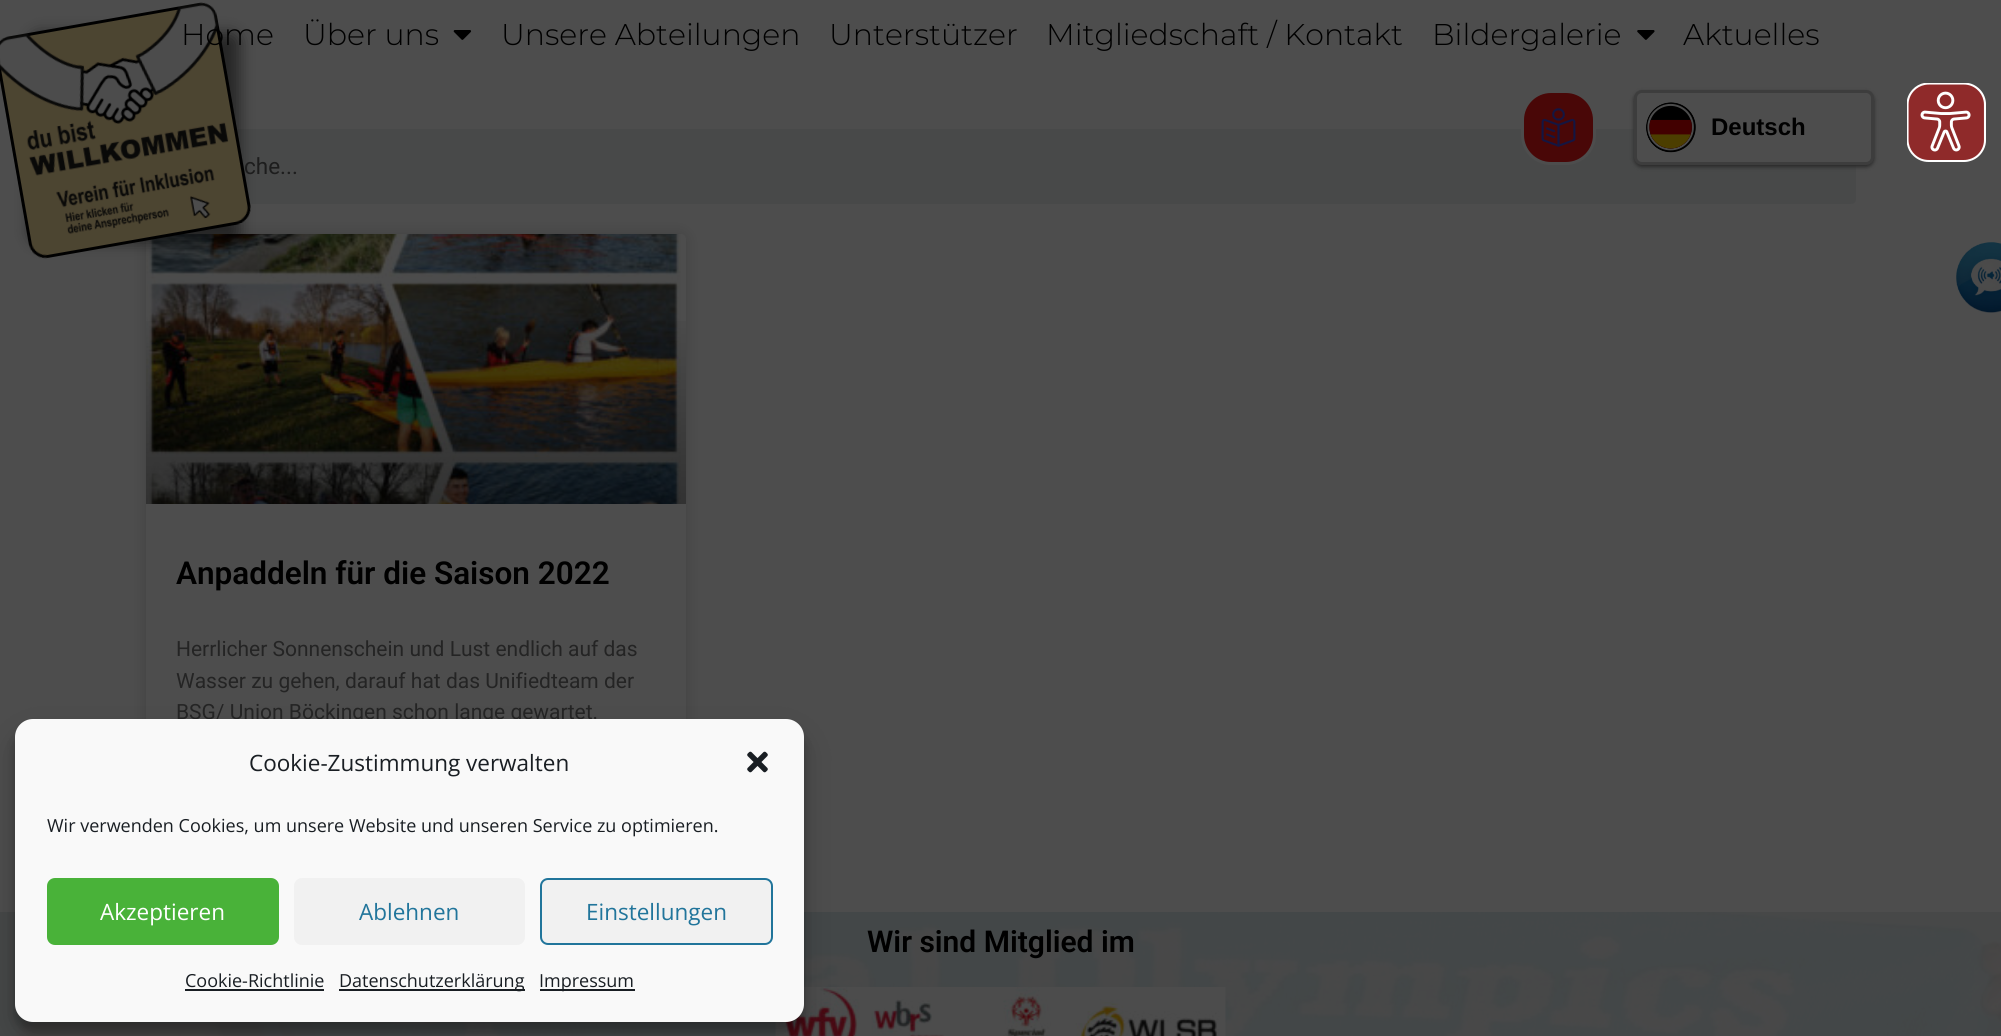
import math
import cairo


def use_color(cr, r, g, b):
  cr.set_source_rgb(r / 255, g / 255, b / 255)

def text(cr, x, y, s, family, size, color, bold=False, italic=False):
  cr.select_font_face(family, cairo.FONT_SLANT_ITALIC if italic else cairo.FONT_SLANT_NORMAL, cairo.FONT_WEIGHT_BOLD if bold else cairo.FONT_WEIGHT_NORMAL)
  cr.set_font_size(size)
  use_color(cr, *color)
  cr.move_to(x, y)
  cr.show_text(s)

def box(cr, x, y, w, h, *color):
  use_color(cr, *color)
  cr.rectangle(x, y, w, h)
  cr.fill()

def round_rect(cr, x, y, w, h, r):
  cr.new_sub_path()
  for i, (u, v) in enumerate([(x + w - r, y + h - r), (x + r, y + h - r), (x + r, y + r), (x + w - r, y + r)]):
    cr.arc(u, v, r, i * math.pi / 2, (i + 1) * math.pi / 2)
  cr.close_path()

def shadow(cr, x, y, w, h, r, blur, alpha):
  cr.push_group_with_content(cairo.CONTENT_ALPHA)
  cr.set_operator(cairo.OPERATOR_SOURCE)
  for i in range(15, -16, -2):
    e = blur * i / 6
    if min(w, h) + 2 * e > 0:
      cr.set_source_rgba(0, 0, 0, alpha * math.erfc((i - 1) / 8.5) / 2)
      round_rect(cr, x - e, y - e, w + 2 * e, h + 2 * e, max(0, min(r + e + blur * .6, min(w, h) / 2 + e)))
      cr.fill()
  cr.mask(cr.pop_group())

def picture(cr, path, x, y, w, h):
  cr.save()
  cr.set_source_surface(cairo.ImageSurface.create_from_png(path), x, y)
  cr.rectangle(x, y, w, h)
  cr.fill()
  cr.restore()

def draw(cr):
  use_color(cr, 77, 77, 77)
  cr.paint()
  use_color(cr, 72, 73, 73)
  round_rect(cr, 146, 129, 1710, 75, 5)
  cr.fill()
  use_color(cr, 0, 0, 0)
  shadow(cr, 146, 234, 540, 618, 5, 7.5, 0.15)
  use_color(cr, 77, 77, 77)
  round_rect(cr, 146, 234, 540, 618, 5)
  cr.fill()
  picture(cr, "img_05.png", 146, 234, 535, 270)
  use_color(cr, 0, 0, 0)
  shadow(cr, 30, 33, 210, 210, 9, 7.5, 0.5)
  picture(cr, "img_02.png", 453, 30, 19, 10)
  picture(cr, "img_03.png", 1637, 30, 18, 10)
  picture(cr, "img_04.png", 1956, 242, 45, 71)
  gradient = cairo.LinearGradient(416, 504, 416, 234)
  gradient.add_color_stop_rgba(0, 0, 0, 0, 0.35)
  gradient.add_color_stop_rgba(0.75, 0, 0, 0, 0)
  cr.set_source(gradient)
  cr.rectangle(146, 321, 540, 183)
  cr.fill()
  picture(cr, "img_06.png", 0, 912, 2001, 124)
  picture(cr, "img_07.png", 775, 987, 451, 49)
  picture(cr, "img_08.png", 1907, 83, 79, 79)
  use_color(cr, 73, 7, 7)
  round_rect(cr, 1522.5, 91.5, 72, 72, 28.5)
  cr.fill_preserve()
  use_color(cr, 77, 77, 77)
  cr.set_line_width(3)
  cr.stroke()
  picture(cr, "img_09.png", 1541, 108, 35, 39)
  use_color(cr, 40, 40, 40)
  shadow(cr, 1634, 92, 240, 75, 8, 2, 1)
  use_color(cr, 77, 77, 77)
  round_rect(cr, 1635.5, 91.5, 237, 72, 6.5)
  cr.fill_preserve()
  use_color(cr, 61, 61, 61)
  cr.stroke()
  picture(cr, "img_10.png", 1646, 102, 50, 51)
  use_color(cr, 0, 0, 0)
  shadow(cr, 15, 728, 789, 303, 18, 4.5, 0.23)
  shadow(cr, 15, 734, 789, 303, 18, 15, 0.19)
  text(cr, 303, 45, "Über uns", "Montserrat Light", 30, (0, 0, 0))
  text(cr, 501, 45, "Unsere Abteilungen", "Montserrat Light", 30, (0, 0, 0))
  text(cr, 829, 45, "Unterstützer", "Montserrat Light", 30, (0, 0, 0))
  text(cr, 1046, 45, "Mitgliedschaft / Kontakt", "Montserrat Light", 30, (0, 0, 0))
  text(cr, 1432, 45, "Bildergalerie", "Montserrat Light", 30, (0, 0, 0))
  text(cr, 1683, 45, "Aktuelles", "Montserrat Light", 30, (0, 0, 0))
  text(cr, 244, 174, "che...", "Roboto", 22.5, (29, 29, 29))
  picture(cr, "img_01.png", 0, 2, 252, 257)
  text(cr, 181, 45, "Home", "Montserrat Light", 30, (0, 0, 0))
  text(cr, 176, 584, "Anpaddeln für die Saison 2022", "Roboto SemiBold", 31.5, (0, 0, 0))
  text(cr, 176, 656, "Herrlicher Sonnenschein und Lust endlich auf das", "Roboto", 21, (36, 36, 36))
  text(cr, 176, 688, "Wasser zu gehen, darauf hat das Unifiedteam der", "Roboto", 21, (36, 36, 36))
  text(cr, 176, 719, "BSG/ Union Böckingen schon lange gewartet.", "Roboto", 21, (36, 36, 36))
  text(cr, 867, 952, "Wir sind Mitglied im", "Roboto SemiBold", 30, (0, 0, 0))
  text(cr, 1711, 135, "Deutsch", "Liberation Sans", 24, (0, 0, 0), bold=True)
  use_color(cr, 249, 249, 249)
  round_rect(cr, 16, 720, 787, 301, 17)
  cr.fill_preserve()
  cr.set_line_width(2)
  cr.stroke()
  text(cr, 249, 771, "Cookie-Zustimmung verwalten", "Open Sans", 22.5, (25, 30, 35))
  picture(cr, "img_11.png", 747, 751, 21, 22)
  text(cr, 47, 832, "Wir verwenden Cookies, um unsere Website und unseren Service zu optimieren.", "Open Sans", 18, (25, 30, 35))
  use_color(cr, 73, 178, 57)
  round_rect(cr, 48, 879, 230, 65, 7)
  cr.fill_preserve()
  cr.stroke()
  text(cr, 100, 920, "Akzeptieren", "Open Sans", 22.5, (255, 255, 255))
  use_color(cr, 241, 241, 241)
  round_rect(cr, 294, 878, 231, 67, 8)
  cr.fill()
  text(cr, 359, 920, "Ablehnen", "Open Sans", 22.5, (33, 117, 155))
  use_color(cr, 241, 241, 241)
  round_rect(cr, 541, 879, 231, 65, 7)
  cr.fill_preserve()
  use_color(cr, 33, 117, 155)
  cr.stroke()
  text(cr, 586, 920, "Einstellungen", "Open Sans", 22.5, (33, 117, 155))
  text(cr, 185, 987, "Cookie-Richtlinie", "Open Sans", 18, (25, 30, 35))
  box(cr, 185, 989, 139, 2, 25, 30, 35)
  box(cr, 339, 989, 186, 2, 25, 30, 35)
  text(cr, 339, 987, "Datenschutzerklärung", "Open Sans", 18, (25, 30, 35))
  box(cr, 540, 989, 95, 2, 25, 30, 35)
  text(cr, 539, 987, "Impressum", "Open Sans", 18, (25, 30, 35))


surface = cairo.ImageSurface(cairo.FORMAT_RGB24, 2001, 1036)
cr = cairo.Context(surface)
options = cairo.FontOptions()
options.set_hint_metrics(cairo.HINT_METRICS_OFF)
options.set_hint_style(cairo.HINT_STYLE_NONE)
cr.set_font_options(options)
cr.set_miter_limit(4)
draw(cr)
surface.write_to_png("out.png")
